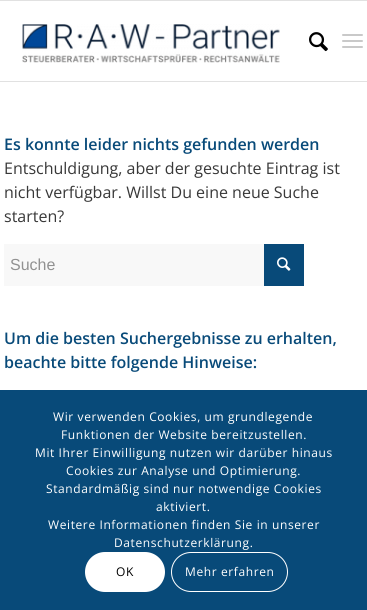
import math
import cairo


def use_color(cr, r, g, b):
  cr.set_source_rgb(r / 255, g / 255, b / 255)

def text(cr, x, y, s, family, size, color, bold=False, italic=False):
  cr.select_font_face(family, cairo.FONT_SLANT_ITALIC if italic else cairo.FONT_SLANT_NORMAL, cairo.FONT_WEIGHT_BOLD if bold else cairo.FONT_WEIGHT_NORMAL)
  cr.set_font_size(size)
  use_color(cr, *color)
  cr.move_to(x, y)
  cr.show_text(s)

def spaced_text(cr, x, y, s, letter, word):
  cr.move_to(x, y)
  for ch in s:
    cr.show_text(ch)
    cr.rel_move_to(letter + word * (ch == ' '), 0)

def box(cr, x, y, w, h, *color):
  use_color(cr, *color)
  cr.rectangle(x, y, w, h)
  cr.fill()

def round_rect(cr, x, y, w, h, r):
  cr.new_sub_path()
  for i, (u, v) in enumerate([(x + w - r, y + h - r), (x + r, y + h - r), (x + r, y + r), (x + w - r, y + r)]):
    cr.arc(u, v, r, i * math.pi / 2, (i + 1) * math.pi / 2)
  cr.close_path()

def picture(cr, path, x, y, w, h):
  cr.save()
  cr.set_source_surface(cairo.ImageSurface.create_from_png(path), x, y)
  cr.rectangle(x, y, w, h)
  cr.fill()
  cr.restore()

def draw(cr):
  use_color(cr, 255, 255, 255)
  cr.paint()
  box(cr, 0, 0, 367, 1, 225, 225, 225)
  box(cr, 0, 81, 367, 1, 225, 225, 225)
  picture(cr, "img_01.png", 22, 24, 258, 39)
  picture(cr, "img_02.png", 309, 32, 19, 20)
  use_color(cr, 201, 201, 201)
  round_rect(cr, 342, 40, 21, 2, 1)
  cr.fill()
  round_rect(cr, 342, 34, 21, 2, 1)
  cr.fill()
  round_rect(cr, 342, 46, 21, 2, 1)
  cr.fill()
  box(cr, 4, 244, 260, 42, 248, 248, 248)
  box(cr, 264, 244, 40, 42, 8, 74, 121)
  picture(cr, "img_03.png", 277, 257, 14, 14)
  box(cr, 0, 390, 367, 220, 8, 74, 121)
  use_color(cr, 255, 255, 255)
  round_rect(cr, 85, 552, 80, 40, 20)
  cr.fill()
  round_rect(cr, 171.5, 552.5, 116, 39, 19.5)
  cr.set_line_width(1)
  cr.stroke()
  text(cr, 4, 150, "Es konnte leider nichts gefunden werden", "Open Sans SemiBold", 16, (8, 74, 121))
  text(cr, 4, 174, "Entschuldigung, aber der gesuchte Eintrag ist", "Open Sans", 16, (56, 56, 56))
  text(cr, 4, 198, "nicht verfügbar. Willst Du eine neue Suche", "Open Sans", 16, (56, 56, 56))
  text(cr, 4, 222, "starten?", "Open Sans", 16, (56, 56, 56))
  text(cr, 10, 270, "Suche", "Liberation Sans", 16, (145, 145, 145))
  text(cr, 4, 344, "Um die besten Suchergebnisse zu erhalten,", "Open Sans SemiBold", 16, (8, 74, 121))
  text(cr, 4, 368, "beachte bitte folgende Hinweise:", "Open Sans SemiBold", 16, (8, 74, 121))
  cr.select_font_face("Open Sans")
  cr.set_font_size(12)
  use_color(cr, 255, 255, 255)
  spaced_text(cr, 53, 421, "Wir verwenden Cookies, um grundlegende", 0.6, 0)
  spaced_text(cr, 61, 439, "Funktionen der Website bereitzustellen.", 0.6, 0)
  spaced_text(cr, 35, 457, "Mit Ihrer Einwilligung nutzen wir darüber hinaus", 0.6, 0)
  spaced_text(cr, 66, 475, "Cookies zur Analyse und Optimierung.", 0.6, 0)
  spaced_text(cr, 46, 493, "Standardmäßig sind nur notwendige Cookies", 0.6, 0)
  spaced_text(cr, 156, 511, "aktiviert.", 0.6, 0)
  spaced_text(cr, 48, 529, "Weitere Informationen finden Sie in unserer", 0.6, 0)
  spaced_text(cr, 114, 547, "Datenschutzerklärung.", 0.6, 0)
  use_color(cr, 0, 0, 0)
  spaced_text(cr, 116, 576, "OK", 0.6, 0)
  use_color(cr, 255, 255, 255)
  spaced_text(cr, 185, 576, "Mehr erfahren", 0.6, 0)


surface = cairo.ImageSurface(cairo.FORMAT_RGB24, 367, 610)
cr = cairo.Context(surface)
options = cairo.FontOptions()
options.set_hint_metrics(cairo.HINT_METRICS_OFF)
options.set_hint_style(cairo.HINT_STYLE_NONE)
cr.set_font_options(options)
cr.set_miter_limit(4)
draw(cr)
surface.write_to_png("out.png")
